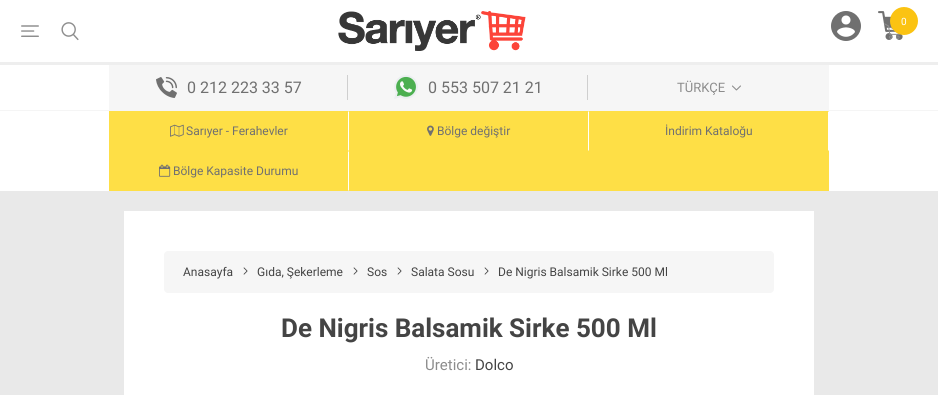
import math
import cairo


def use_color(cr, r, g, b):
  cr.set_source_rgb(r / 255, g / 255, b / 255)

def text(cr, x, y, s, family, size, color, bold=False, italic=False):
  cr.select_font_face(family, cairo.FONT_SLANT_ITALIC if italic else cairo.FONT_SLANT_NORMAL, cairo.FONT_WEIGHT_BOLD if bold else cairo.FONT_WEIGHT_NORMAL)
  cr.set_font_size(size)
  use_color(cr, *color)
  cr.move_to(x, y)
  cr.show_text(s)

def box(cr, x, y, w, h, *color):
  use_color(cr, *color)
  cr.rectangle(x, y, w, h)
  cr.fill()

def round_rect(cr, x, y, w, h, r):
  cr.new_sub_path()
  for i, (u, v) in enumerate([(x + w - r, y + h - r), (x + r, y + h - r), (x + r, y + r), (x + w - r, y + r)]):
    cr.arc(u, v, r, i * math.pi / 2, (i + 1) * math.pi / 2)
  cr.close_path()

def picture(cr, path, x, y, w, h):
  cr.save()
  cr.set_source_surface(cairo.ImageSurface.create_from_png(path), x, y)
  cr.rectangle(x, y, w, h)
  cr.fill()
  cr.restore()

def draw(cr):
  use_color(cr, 255, 255, 255)
  cr.paint()
  box(cr, 0, 62, 938, 3, 238, 238, 238)
  picture(cr, "img_01.png", 21, 25, 18, 12)
  picture(cr, "img_02.png", 61, 22, 18, 19)
  picture(cr, "img_03.png", 338, 11, 188, 40)
  picture(cr, "img_04.png", 831, 11, 30, 30)
  picture(cr, "img_05.png", 878, 11, 25, 29)
  picture(cr, "img_06.png", 884, 23, 16, 16)
  use_color(cr, 251, 195, 18)
  cr.arc(904, 21, 14, 0, 2 * math.pi)
  cr.fill()
  box(cr, 0, 110, 938, 1, 245, 245, 245)
  box(cr, 109, 65, 720, 45, 246, 246, 246)
  box(cr, 347, 75, 1, 25, 207, 207, 207)
  picture(cr, "img_07.png", 156, 77, 21, 21)
  box(cr, 587, 75, 1, 25, 207, 207, 207)
  picture(cr, "img_08.png", 394, 75, 24, 24)
  picture(cr, "img_09.png", 732, 85, 9, 6)
  box(cr, 109, 111, 720, 80, 254, 223, 70)
  use_color(cr, 255, 255, 255)
  cr.new_path()
  cr.move_to(349, 111)
  cr.line_to(349, 151)
  cr.line_to(348, 150)
  cr.line_to(348, 112)
  cr.close_path()
  cr.fill()
  picture(cr, "img_10.png", 170, 124, 14, 13)
  cr.new_path()
  cr.move_to(589, 111)
  cr.line_to(589, 151)
  cr.line_to(588, 150)
  cr.line_to(588, 112)
  cr.close_path()
  cr.fill()
  picture(cr, "img_11.png", 427, 125, 7, 11)
  cr.new_path()
  cr.move_to(829, 111)
  cr.line_to(829, 151)
  cr.line_to(828, 150)
  cr.line_to(828, 112)
  cr.close_path()
  cr.fill()
  cr.new_path()
  cr.move_to(349, 151)
  cr.line_to(349, 191)
  cr.line_to(348, 190)
  cr.line_to(348, 152)
  cr.close_path()
  cr.fill()
  picture(cr, "img_12.png", 159, 164, 12, 13)
  box(cr, 0, 191, 938, 204, 233, 233, 233)
  box(cr, 124, 211, 690, 184, 255, 255, 255)
  use_color(cr, 246, 246, 246)
  round_rect(cr, 164, 251, 610, 42, 4)
  cr.fill()
  picture(cr, "img_13.png", 243, 267, 5, 8)
  picture(cr, "img_13.png", 353, 267, 5, 8)
  picture(cr, "img_13.png", 397, 267, 5, 8)
  picture(cr, "img_13.png", 484, 267, 5, 8)
  text(cr, 901, 25, "0", "Roboto", 10, (255, 255, 255))
  text(cr, 187, 93, "0 212 223 33 57", "Roboto", 16, (112, 112, 112))
  text(cr, 428, 93, "0 553 507 21 21", "Roboto", 16, (112, 112, 112))
  text(cr, 677, 92, "TÜRKÇE", "Roboto", 13, (140, 140, 140))
  text(cr, 186, 135, "Sarıyer - Ferahevler", "Roboto", 12, (112, 112, 112))
  text(cr, 437, 135, "Bölge değiştir", "Roboto", 12, (112, 112, 112))
  text(cr, 665, 135, "İndirim Kataloğu", "Roboto", 12, (112, 112, 112))
  text(cr, 173, 175, "Bölge Kapasite Durumu", "Roboto", 12, (112, 112, 112))
  text(cr, 183, 276, "Anasayfa", "Roboto", 12, (68, 68, 68))
  text(cr, 257, 276, "Gıda, Şekerleme", "Roboto", 12, (68, 68, 68))
  text(cr, 367, 276, "Sos", "Roboto", 12, (68, 68, 68))
  text(cr, 411, 276, "Salata Sosu", "Roboto", 12, (68, 68, 68))
  text(cr, 498, 276, "De Nigris Balsamik Sirke 500 Ml", "Roboto", 12, (68, 68, 68))
  text(cr, 281, 337, "De Nigris Balsamik Sirke 500 Ml", "Roboto", 26, (68, 68, 68), bold=True)
  text(cr, 425, 370, "Üretici:", "Roboto", 15, (140, 140, 140))
  text(cr, 475, 370, "Dolco", "Roboto", 15, (68, 68, 68))


surface = cairo.ImageSurface(cairo.FORMAT_RGB24, 938, 395)
cr = cairo.Context(surface)
options = cairo.FontOptions()
options.set_hint_metrics(cairo.HINT_METRICS_OFF)
options.set_hint_style(cairo.HINT_STYLE_NONE)
cr.set_font_options(options)
cr.set_miter_limit(4)
draw(cr)
surface.write_to_png("out.png")
